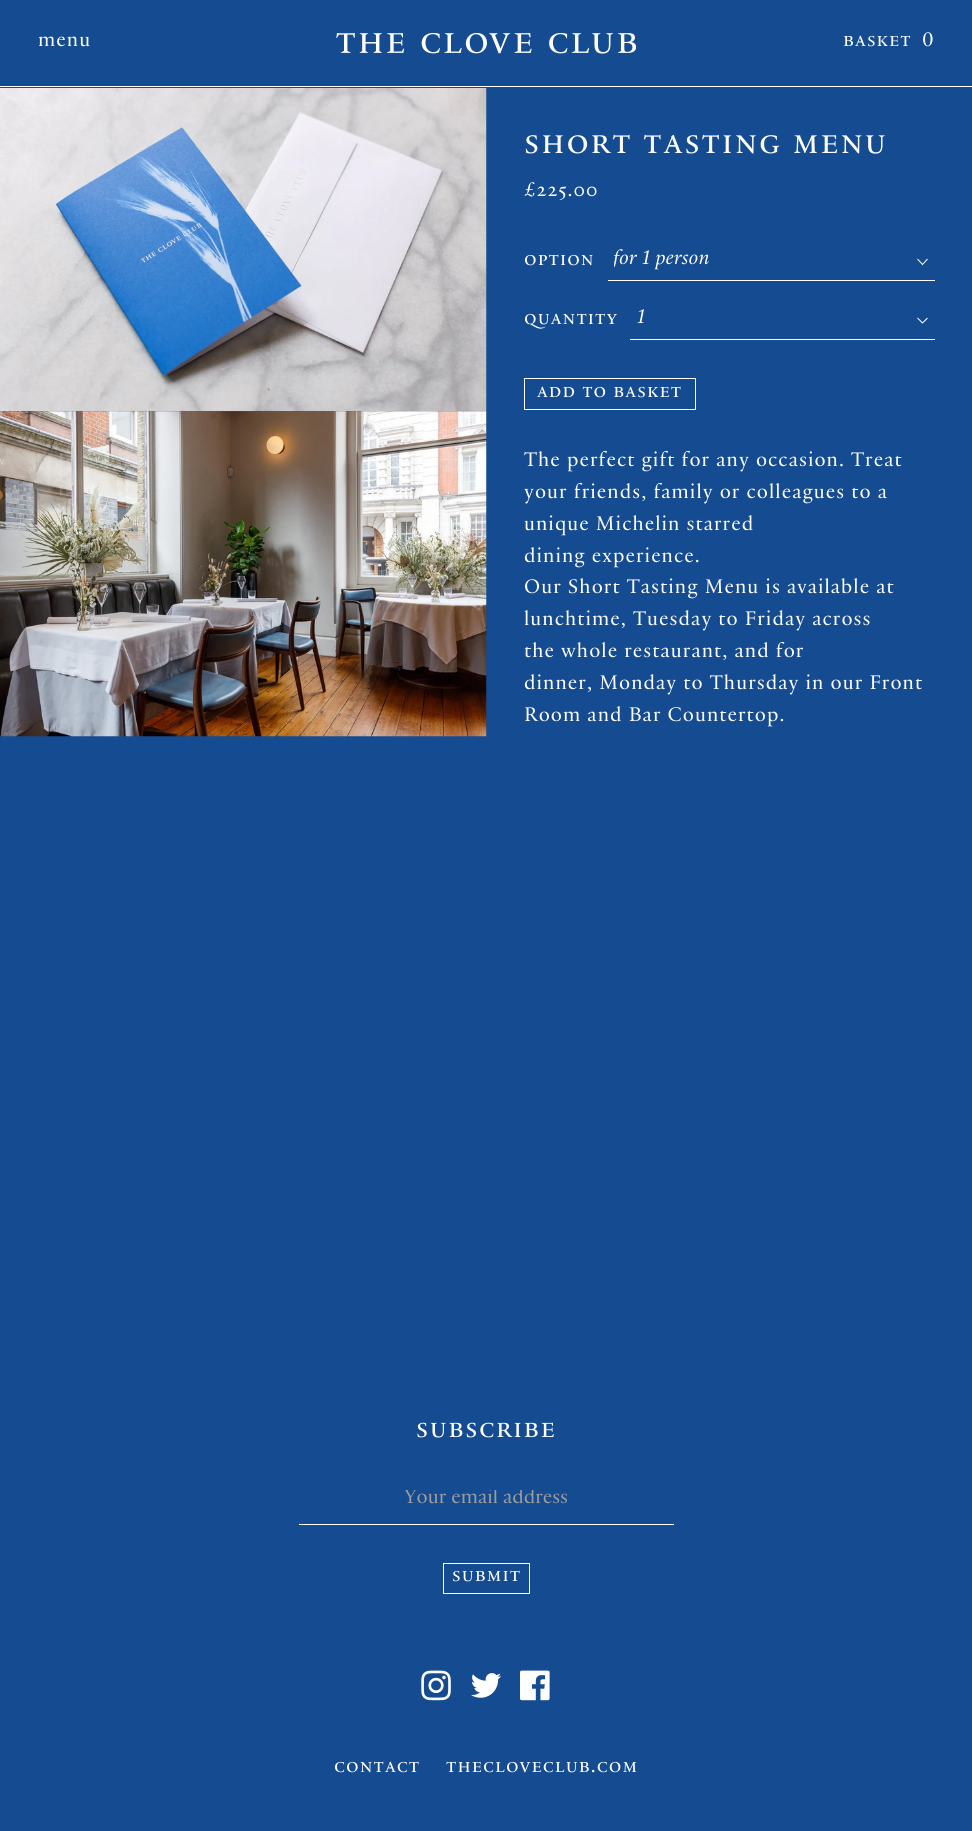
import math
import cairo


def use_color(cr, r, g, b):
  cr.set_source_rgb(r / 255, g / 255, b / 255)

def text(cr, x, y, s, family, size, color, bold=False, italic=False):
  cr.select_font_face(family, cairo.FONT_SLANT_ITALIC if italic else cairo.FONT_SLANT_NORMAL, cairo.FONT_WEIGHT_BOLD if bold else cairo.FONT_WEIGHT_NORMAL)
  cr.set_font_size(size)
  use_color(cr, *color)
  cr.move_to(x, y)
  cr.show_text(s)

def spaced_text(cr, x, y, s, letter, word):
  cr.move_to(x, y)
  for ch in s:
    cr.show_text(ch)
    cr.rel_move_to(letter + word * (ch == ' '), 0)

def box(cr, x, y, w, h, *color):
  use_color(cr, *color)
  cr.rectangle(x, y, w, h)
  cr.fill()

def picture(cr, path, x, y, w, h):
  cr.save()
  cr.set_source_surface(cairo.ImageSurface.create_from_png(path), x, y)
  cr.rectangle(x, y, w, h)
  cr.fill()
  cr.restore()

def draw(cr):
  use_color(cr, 21, 75, 144)
  cr.paint()
  box(cr, 0, 86, 972, 1, 255, 255, 255)
  picture(cr, "img_01.png", 336, 33, 300, 21)
  picture(cr, "img_02.png", 0, 88, 487, 324)
  picture(cr, "img_03.png", 0, 411, 487, 326)
  cr.new_path()
  cr.move_to(917.5, 259)
  cr.line_to(922.5, 264.5)
  cr.line_to(927.5, 259)
  cr.set_line_width(1)
  cr.stroke()
  box(cr, 608, 280, 327, 1, 255, 255, 255)
  cr.new_path()
  cr.move_to(917.5, 318)
  cr.line_to(922.5, 323)
  cr.line_to(927.5, 318)
  cr.stroke()
  box(cr, 630, 339, 305, 1, 255, 255, 255)
  cr.rectangle(524.5, 378.5, 171, 31)
  cr.stroke()
  box(cr, 299, 1524, 375, 1, 255, 255, 255)
  cr.rectangle(443.5, 1563.5, 86, 30)
  cr.stroke()
  picture(cr, "img_04.png", 421, 1670, 30, 31)
  picture(cr, "img_05.png", 471, 1673, 30, 25)
  picture(cr, "img_06.png", 520, 1670, 30, 31)
  cr.select_font_face("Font")
  cr.set_font_size(21.25)
  spaced_text(cr, 38, 46, "menu", 1.05, 0)
  cr.select_font_face("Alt")
  spaced_text(cr, 843, 46, "basket", 1.05, 0)
  cr.select_font_face("Font")
  spaced_text(cr, 922, 46, "0", 1.05, 0)
  cr.select_font_face("Alt")
  cr.set_font_size(37.5)
  spaced_text(cr, 524, 153, "short tasting menu", 1.9, 0)
  cr.select_font_face("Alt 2")
  cr.set_font_size(21.25)
  spaced_text(cr, 524, 196, "£225.00", 1.05, 0)
  cr.select_font_face("Alt")
  spaced_text(cr, 524, 265, "option", 1.05, 0)
  cr.save()
  cr.rectangle(614, 249, 284, 25)
  cr.clip()
  text(cr, 613, 264, "for 1 person", "Font", 21.25, (255, 255, 255), italic=True)
  cr.restore()
  spaced_text(cr, 524, 324, "quantity", 1.05, 0)
  text(cr, 637, 323, "1", "Font", 21.25, (255, 255, 255), italic=True)
  cr.select_font_face("Alt")
  spaced_text(cr, 537, 397, "add to basket", 1.05, 0)
  cr.select_font_face("Font")
  spaced_text(cr, 524, 466, "The perfect gift for any occasion. Treat", 1.05, 0)
  spaced_text(cr, 524, 498, "your friends, family or colleagues to a", 1.05, 0)
  spaced_text(cr, 524, 530, "unique Michelin starred", 1.05, 0)
  spaced_text(cr, 524, 562, "dining experience.", 1.05, 0)
  spaced_text(cr, 524, 593, "Our Short Tasting Menu is available at", 1.05, 0)
  spaced_text(cr, 524, 625, "lunchtime, Tuesday to Friday across", 1.05, 0)
  spaced_text(cr, 524, 657, "the whole restaurant, and for", 1.05, 0)
  spaced_text(cr, 524, 689, "dinner, Monday to Thursday in our Front", 1.05, 0)
  spaced_text(cr, 524, 721, "Room and Bar Countertop.", 1.05, 0)
  cr.select_font_face("Alt")
  cr.set_font_size(30)
  spaced_text(cr, 416, 1437, "subscribe", 1.5, 0)
  cr.save()
  cr.rectangle(299, 1490, 375, 21)
  cr.clip()
  text(cr, 404, 1503, "Your email address", "Font", 21.25, (157, 156, 156))
  cr.restore()
  cr.set_font_size(21.25)
  spaced_text(cr, 452, 1581, "submit", 1.05, 0)
  spaced_text(cr, 334, 1772, "contact", 1.05, 0)
  spaced_text(cr, 446, 1772, "thecloveclub.com", 1.05, 0)


surface = cairo.ImageSurface(cairo.FORMAT_RGB24, 972, 1831)
cr = cairo.Context(surface)
options = cairo.FontOptions()
options.set_hint_metrics(cairo.HINT_METRICS_OFF)
options.set_hint_style(cairo.HINT_STYLE_NONE)
cr.set_font_options(options)
cr.set_miter_limit(4)
draw(cr)
surface.write_to_png("out.png")
